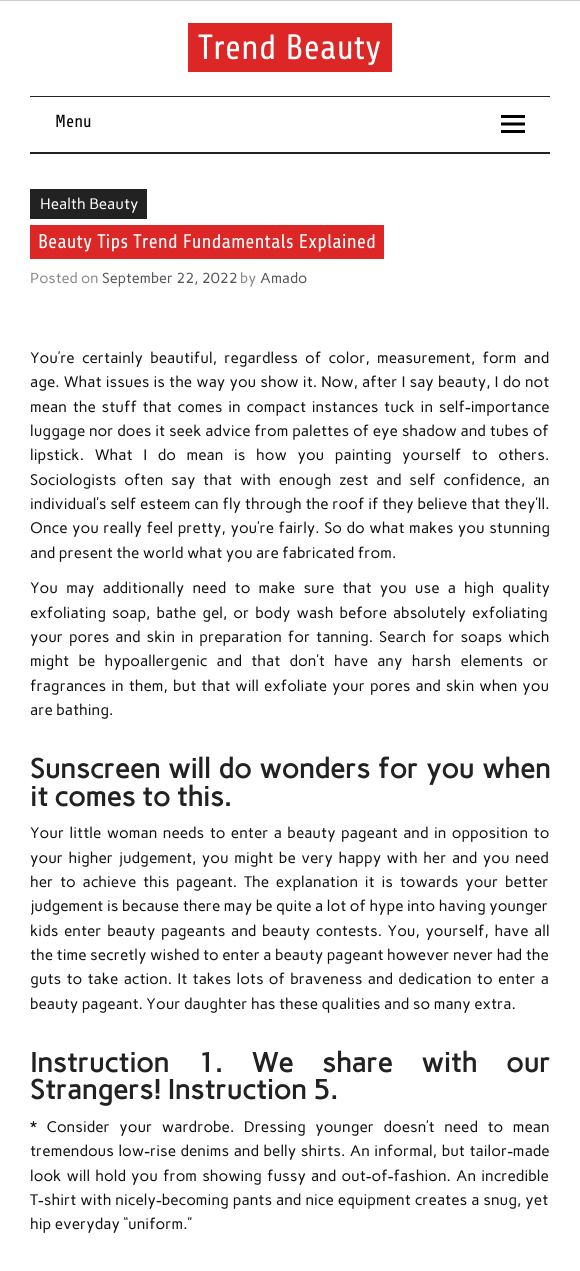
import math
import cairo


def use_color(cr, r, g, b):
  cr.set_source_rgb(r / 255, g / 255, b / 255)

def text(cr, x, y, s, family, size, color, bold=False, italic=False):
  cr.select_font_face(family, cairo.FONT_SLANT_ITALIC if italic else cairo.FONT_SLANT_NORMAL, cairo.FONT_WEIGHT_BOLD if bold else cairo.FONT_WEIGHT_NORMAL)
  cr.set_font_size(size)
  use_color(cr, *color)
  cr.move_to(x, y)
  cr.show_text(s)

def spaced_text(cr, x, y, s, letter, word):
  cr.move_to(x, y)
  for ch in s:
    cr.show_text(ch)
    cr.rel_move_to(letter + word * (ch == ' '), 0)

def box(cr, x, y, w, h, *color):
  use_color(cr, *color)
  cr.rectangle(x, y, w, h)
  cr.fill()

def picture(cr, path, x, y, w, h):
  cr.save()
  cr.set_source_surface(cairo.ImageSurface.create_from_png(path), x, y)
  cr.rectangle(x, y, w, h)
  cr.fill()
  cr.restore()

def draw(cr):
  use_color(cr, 255, 255, 255)
  cr.paint()
  box(cr, 0, 0, 580, 1, 204, 204, 204)
  box(cr, 188, 23, 204, 49, 221, 39, 39)
  box(cr, 30, 96, 520, 1, 34, 34, 34)
  box(cr, 30, 152, 520, 2, 34, 34, 34)
  picture(cr, "img_01.png", 501, 115, 24, 18)
  box(cr, 30, 189, 117, 30, 34, 34, 34)
  box(cr, 30, 225, 354, 34, 221, 39, 39)
  text(cr, 198, 59, "Trend Beauty", "Share", 35, (255, 255, 255))
  text(cr, 55, 127, "Menu", "Share", 17.5, (0, 0, 0))
  text(cr, 40, 209, "Health Beauty", "Carme", 15.2, (255, 255, 255))
  text(cr, 38, 248, "Beauty Tips Trend Fundamentals Explained", "Share", 19.75, (255, 255, 255))
  text(cr, 30, 283, "Posted on", "Carme", 14.5, (136, 136, 136))
  text(cr, 102, 283, "September 22, 2022", "Carme", 14.5, (85, 85, 85))
  text(cr, 240, 283, "by", "Carme", 14.5, (136, 136, 136))
  text(cr, 260, 283, "Amado", "Carme", 14.5, (85, 85, 85))
  cr.set_font_size(15.2)
  use_color(cr, 17, 17, 17)
  spaced_text(cr, 30, 363, "You’re certainly beautiful, regardless of color, measurement, form and", 0, 3.75)
  spaced_text(cr, 30, 387, "age. What issues is the way you show it. Now, after I say beauty, I do not", 0, 0.6)
  spaced_text(cr, 30, 412, "mean the stuff that comes in compact instances tuck in self-importance", 0, 2.25)
  spaced_text(cr, 30, 436, "luggage nor does it seek advice from palettes of eye shadow and tubes of", 0, 0.25)
  spaced_text(cr, 30, 460, "lipstick. What I do mean is how you painting yourself to others.", 0, 7.1)
  spaced_text(cr, 30, 485, "Sociologists often say that with enough zest and self confidence, an", 0, 4.25)
  spaced_text(cr, 30, 509, "individual’s self esteem can fly through the roof if they believe that they’ll.", 0, 0.25)
  spaced_text(cr, 30, 533, "Once you really feel pretty, you’re fairly. So do what makes you stunning", 0, 1)
  text(cr, 30, 558, "and present the world what you are fabricated from.", "Carme", 15.2, (17, 17, 17))
  spaced_text(cr, 30, 593, "You may additionally need to make sure that you use a high quality", 0, 4.75)
  spaced_text(cr, 30, 618, "exfoliating soap, bathe gel, or body wash before absolutely exfoliating", 0, 2.5)
  spaced_text(cr, 30, 642, "your pores and skin in preparation for tanning. Search for soaps which", 0, 2.4)
  spaced_text(cr, 30, 666, "might be hypoallergenic and that don’t have any harsh elements or", 0, 5.75)
  spaced_text(cr, 30, 691, "fragrances in them, but that will exfoliate your pores and skin when you", 0, 1.5)
  text(cr, 30, 715, "are bathing.", "Carme", 15.2, (17, 17, 17))
  cr.select_font_face("Carme", cairo.FONT_SLANT_NORMAL, cairo.FONT_WEIGHT_BOLD)
  cr.set_font_size(27.4)
  use_color(cr, 34, 34, 34)
  spaced_text(cr, 30, 778, "Sunscreen will do wonders for you when", 0, 1.5)
  text(cr, 30, 806, "it comes to this.", "Carme", 27.4, (34, 34, 34), bold=True)
  cr.select_font_face("Carme")
  cr.set_font_size(15.2)
  use_color(cr, 17, 17, 17)
  spaced_text(cr, 30, 838, "Your little woman needs to enter a beauty pageant and in opposition to", 0, 1.9)
  spaced_text(cr, 30, 863, "your higher judgement, you might be very happy with her and you need", 0, 2)
  spaced_text(cr, 30, 887, "her to achieve this pageant. The explanation it is towards your better", 0, 3.25)
  text(cr, 30, 911, "judgement is because there may be quite a lot of hype into having younger", "Carme", 15.2, (17, 17, 17))
  spaced_text(cr, 30, 936, "kids enter beauty pageants and beauty contests. You, yourself, have all", 0, 2.1)
  text(cr, 30, 960, "the time secretly wished to enter a beauty pageant however never had the", "Carme", 15.2, (17, 17, 17))
  spaced_text(cr, 30, 984, "guts to take action. It takes lots of braveness and dedication to enter a", 0, 1.75)
  text(cr, 30, 1009, "beauty pageant. Your daughter has these qualities and so many extra.", "Carme", 15.2, (17, 17, 17))
  cr.select_font_face("Carme", cairo.FONT_SLANT_NORMAL, cairo.FONT_WEIGHT_BOLD)
  cr.set_font_size(27.4)
  use_color(cr, 34, 34, 34)
  spaced_text(cr, 30, 1072, "Instruction 1. We share with our", 0, 22.5)
  text(cr, 30, 1099, "Strangers! Instruction 5.", "Carme", 27.4, (34, 34, 34), bold=True)
  cr.select_font_face("Carme")
  cr.set_font_size(15.2)
  use_color(cr, 17, 17, 17)
  spaced_text(cr, 30, 1132, "* Consider your wardrobe. Dressing younger doesn’t need to mean", 0, 6)
  spaced_text(cr, 30, 1156, "tremendous low-rise denims and belly shirts. An informal, but tailor-made", 0, 1)
  spaced_text(cr, 30, 1181, "look will hold you from showing fussy and out-of-fashion. An incredible", 0, 1.6)
  spaced_text(cr, 30, 1205, "T-shirt with nicely-becoming pants and nice equipment creates a snug, yet", 0, 0.5)
  text(cr, 30, 1229, "hip everyday “uniform.”", "Carme", 15.2, (17, 17, 17))


surface = cairo.ImageSurface(cairo.FORMAT_RGB24, 580, 1271)
cr = cairo.Context(surface)
options = cairo.FontOptions()
options.set_hint_metrics(cairo.HINT_METRICS_OFF)
options.set_hint_style(cairo.HINT_STYLE_NONE)
cr.set_font_options(options)
cr.set_miter_limit(4)
draw(cr)
surface.write_to_png("out.png")
